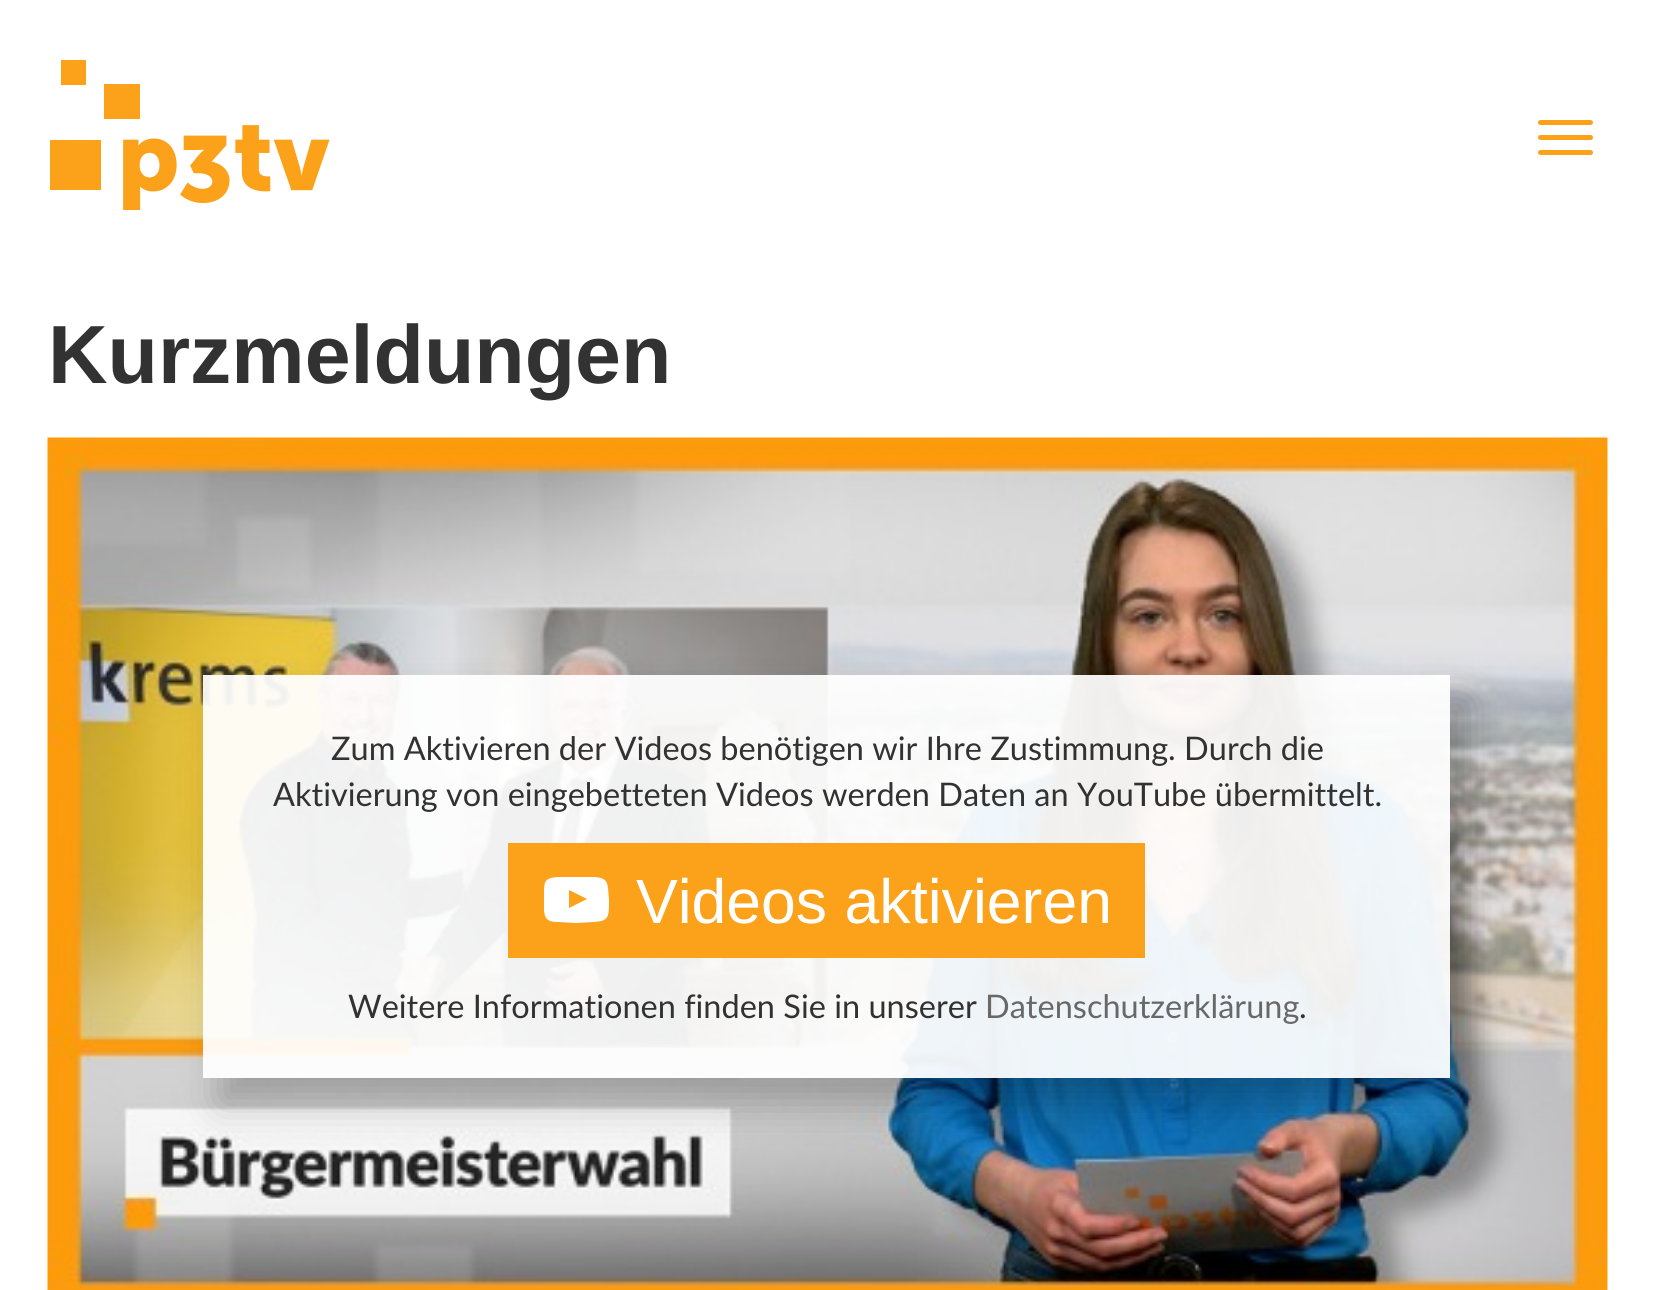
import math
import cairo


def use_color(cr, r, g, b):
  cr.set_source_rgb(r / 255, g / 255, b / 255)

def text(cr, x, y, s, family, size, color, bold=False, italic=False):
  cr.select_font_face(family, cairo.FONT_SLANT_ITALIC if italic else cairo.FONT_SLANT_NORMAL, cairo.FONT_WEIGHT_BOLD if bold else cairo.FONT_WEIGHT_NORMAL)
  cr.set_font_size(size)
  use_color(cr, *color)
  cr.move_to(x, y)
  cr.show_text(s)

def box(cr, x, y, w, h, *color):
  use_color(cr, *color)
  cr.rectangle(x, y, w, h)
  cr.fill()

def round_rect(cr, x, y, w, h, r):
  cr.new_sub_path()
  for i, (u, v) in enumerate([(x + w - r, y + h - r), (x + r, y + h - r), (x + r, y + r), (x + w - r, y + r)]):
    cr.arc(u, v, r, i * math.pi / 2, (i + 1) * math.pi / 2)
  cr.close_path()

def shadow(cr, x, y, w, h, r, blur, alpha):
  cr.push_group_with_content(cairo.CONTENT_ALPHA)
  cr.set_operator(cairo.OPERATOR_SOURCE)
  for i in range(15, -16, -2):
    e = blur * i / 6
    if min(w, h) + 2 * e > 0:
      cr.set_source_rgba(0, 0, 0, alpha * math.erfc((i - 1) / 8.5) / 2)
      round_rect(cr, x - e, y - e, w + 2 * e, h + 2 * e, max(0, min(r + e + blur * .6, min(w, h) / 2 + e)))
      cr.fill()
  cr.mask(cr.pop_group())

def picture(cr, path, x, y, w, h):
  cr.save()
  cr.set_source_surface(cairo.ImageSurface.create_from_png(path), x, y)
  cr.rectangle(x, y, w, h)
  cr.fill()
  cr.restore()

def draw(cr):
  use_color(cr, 255, 255, 255)
  cr.paint()
  picture(cr, "img_01.png", 50, 60, 280, 150)
  use_color(cr, 252, 161, 26)
  round_rect(cr, 1538, 120, 55, 5, 2.5)
  cr.fill()
  round_rect(cr, 1538, 135, 55, 5, 2.5)
  cr.fill()
  round_rect(cr, 1538, 150, 55, 5, 2.5)
  cr.fill()
  picture(cr, "img_02.png", 47, 437, 1561, 853)
  cr.save()
  cr.set_fill_rule(cairo.FILL_RULE_EVEN_ODD)
  cr.new_path()
  cr.move_to(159, 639)
  cr.line_to(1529, 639)
  cr.line_to(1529, 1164)
  cr.line_to(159, 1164)
  cr.close_path()
  cr.move_to(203, 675)
  cr.line_to(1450, 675)
  cr.line_to(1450, 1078)
  cr.line_to(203, 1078)
  cr.close_path()
  cr.clip()
  use_color(cr, 0, 0, 0)
  shadow(cr, 220, 700, 1248, 403, 0, 20, 0.26)
  cr.restore()
  cr.set_source_rgba(1, 1, 1, 0.93)
  cr.rectangle(203, 675, 1247, 403)
  cr.fill()
  box(cr, 508, 843, 637, 115, 252, 162, 26)
  use_color(cr, 255, 255, 255)
  cr.new_path()
  cr.move_to(569, 908)
  cr.line_to(587, 899)
  cr.line_to(569, 890)
  cr.close_path()
  cr.move_to(576, 877)
  cr.line_to(595, 877)
  cr.curve_to(603, 878, 607, 879, 608, 888)
  cr.line_to(609, 900)
  cr.curve_to(609, 917, 609, 921, 594, 922)
  cr.line_to(576, 923)
  cr.line_to(558, 922)
  cr.curve_to(549, 922, 545, 920, 544, 911)
  cr.line_to(544, 899)
  cr.curve_to(544, 882, 543, 878, 558, 877)
  cr.close_path()
  cr.fill()
  text(cr, 48, 383, "Kurzmeldungen", "Liberation Sans", 82.5, (50, 50, 50), bold=True)
  text(cr, 331, 760, "Zum Aktivieren der Videos benötigen wir Ihre Zustimmung. Durch die", "Lato", 32.5, (50, 50, 50))
  text(cr, 273, 806, "Aktivierung von eingebetteten Videos werden Daten an YouTube übermittelt.", "Lato", 32.5, (50, 50, 50))
  text(cr, 636, 923, "Videos aktivieren", "Liberation Sans", 62.5, (255, 255, 255))
  text(cr, 348, 1018, "Weitere Informationen finden Sie in unserer", "Lato", 32.5, (50, 50, 50))
  text(cr, 985, 1018, "Datenschutzerklärung", "Lato", 32.5, (104, 104, 104))
  text(cr, 1299, 1018, ".", "Lato", 32.5, (50, 50, 50))


surface = cairo.ImageSurface(cairo.FORMAT_RGB24, 1655, 1290)
cr = cairo.Context(surface)
options = cairo.FontOptions()
options.set_hint_metrics(cairo.HINT_METRICS_OFF)
options.set_hint_style(cairo.HINT_STYLE_NONE)
cr.set_font_options(options)
cr.set_miter_limit(4)
draw(cr)
surface.write_to_png("out.png")
